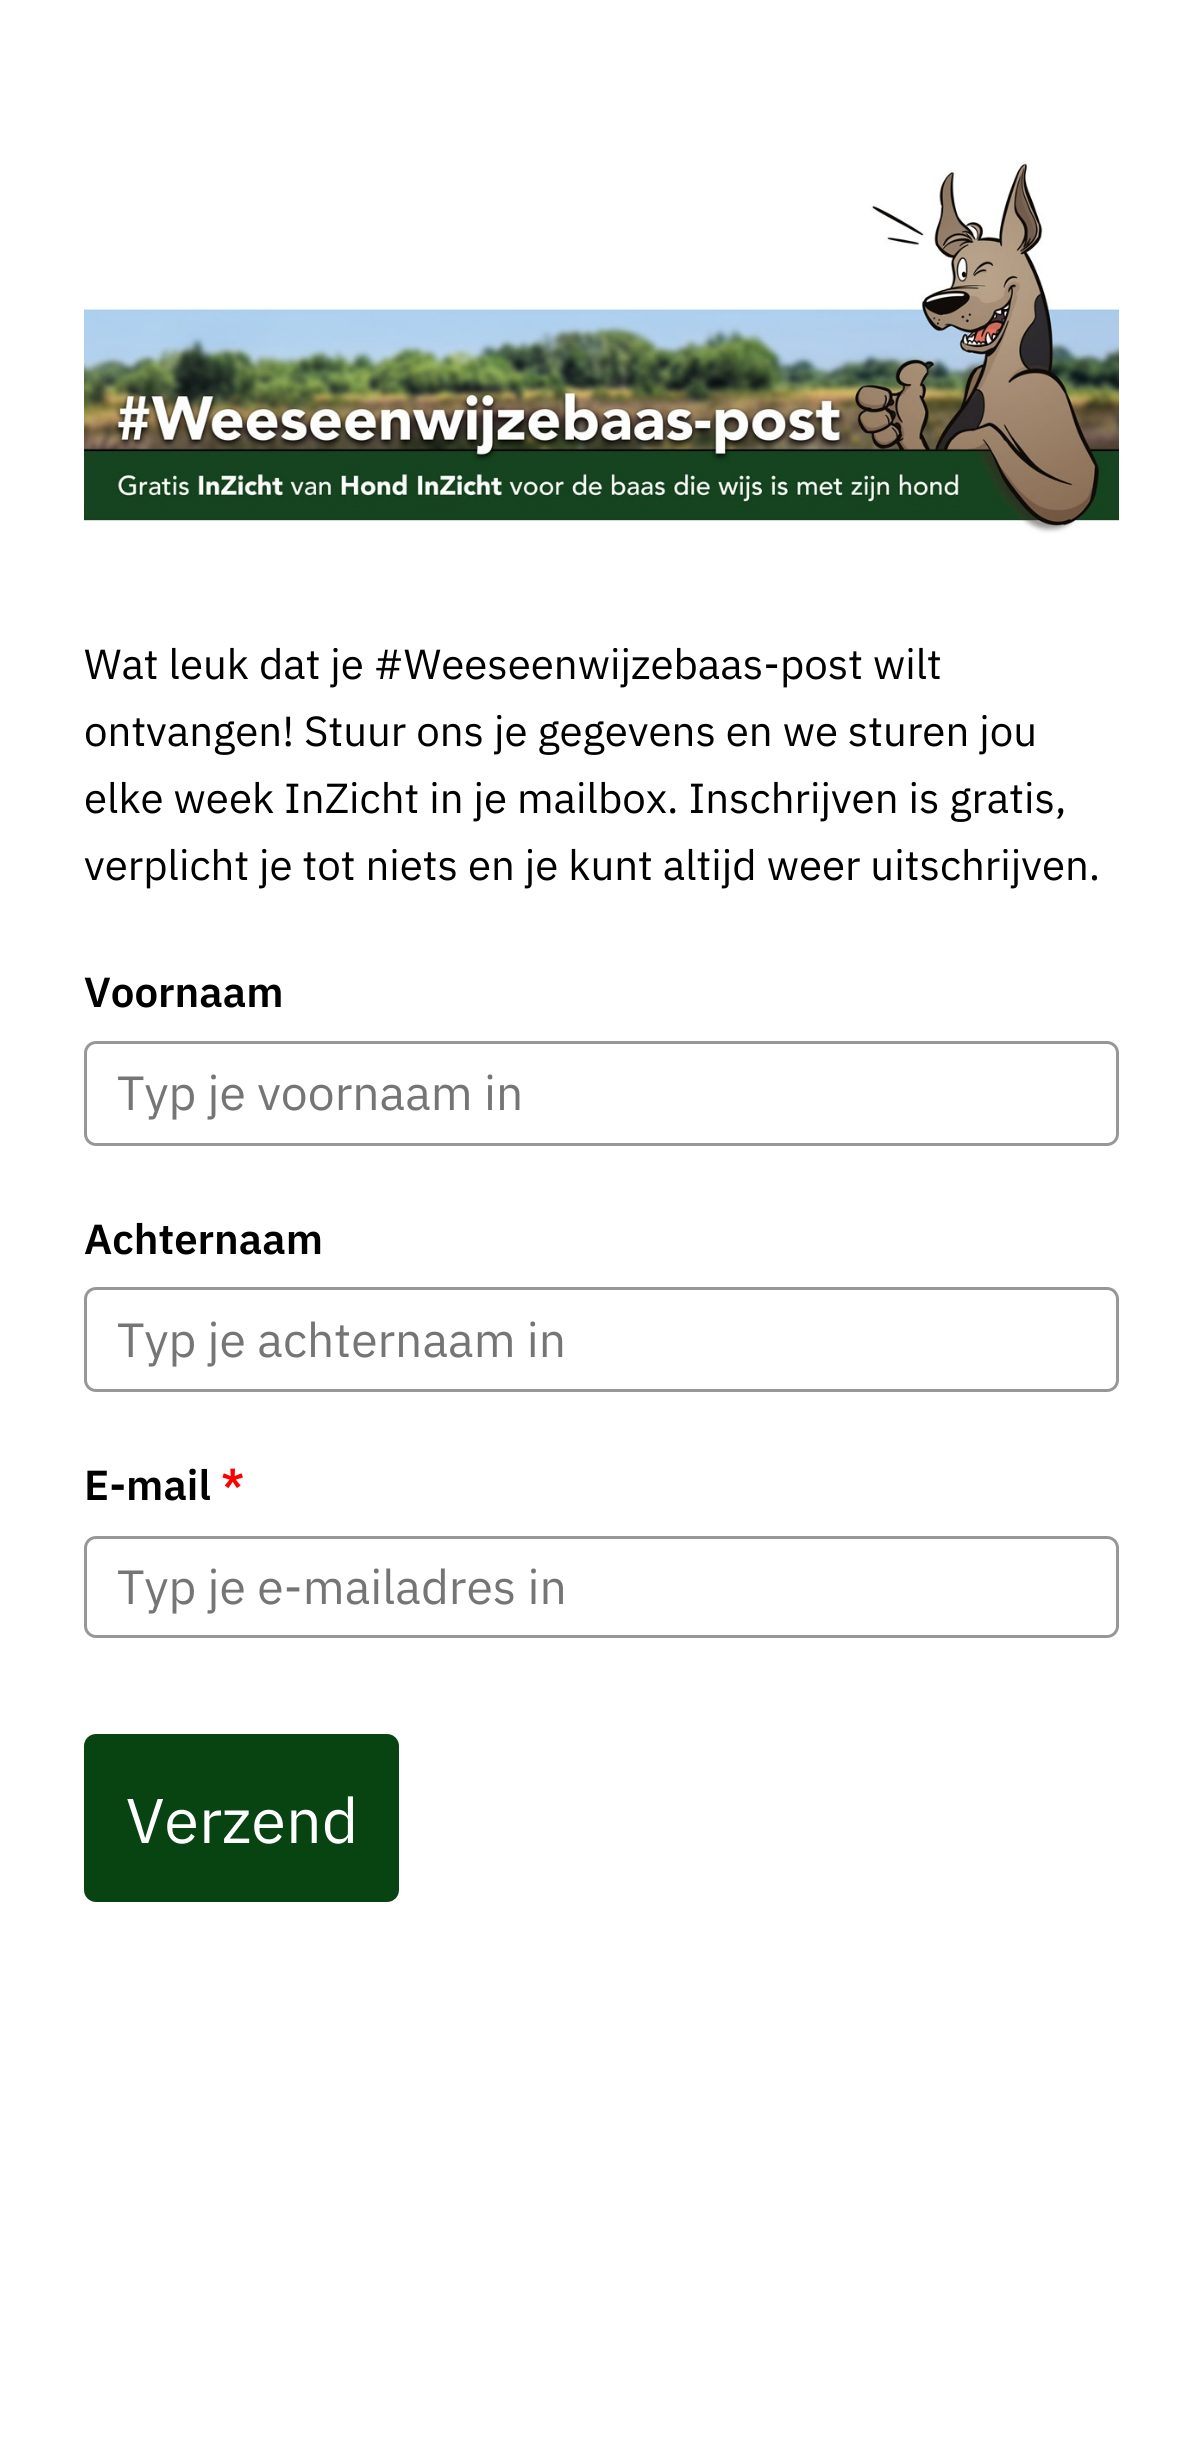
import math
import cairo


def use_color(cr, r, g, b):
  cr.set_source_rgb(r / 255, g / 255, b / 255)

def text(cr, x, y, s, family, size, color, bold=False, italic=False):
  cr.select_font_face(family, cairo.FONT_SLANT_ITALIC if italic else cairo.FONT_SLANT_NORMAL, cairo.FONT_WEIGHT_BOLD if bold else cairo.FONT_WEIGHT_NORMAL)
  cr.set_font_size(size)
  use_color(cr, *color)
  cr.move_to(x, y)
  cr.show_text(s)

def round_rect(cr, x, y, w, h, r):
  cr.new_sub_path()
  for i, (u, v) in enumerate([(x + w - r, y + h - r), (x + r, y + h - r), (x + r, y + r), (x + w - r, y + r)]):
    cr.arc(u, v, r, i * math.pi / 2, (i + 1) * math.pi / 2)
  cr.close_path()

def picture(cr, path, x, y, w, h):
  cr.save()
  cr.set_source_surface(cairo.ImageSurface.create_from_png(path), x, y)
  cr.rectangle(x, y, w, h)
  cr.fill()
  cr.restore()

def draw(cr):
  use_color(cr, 255, 255, 255)
  cr.paint()
  picture(cr, "img_01.png", 84, 163, 1035, 371)
  round_rect(cr, 85.5, 1042.5, 1032, 102, 10.5)
  use_color(cr, 151, 151, 151)
  cr.set_line_width(3)
  cr.stroke()
  round_rect(cr, 85.5, 1288.5, 1032, 102, 10.5)
  cr.stroke()
  round_rect(cr, 85.5, 1537.5, 1032, 99, 10.5)
  cr.stroke()
  use_color(cr, 8, 68, 17)
  round_rect(cr, 84, 1734, 315, 168, 12)
  cr.fill()
  text(cr, 84, 679, "Wat leuk dat je #Weeseenwijzebaas-post wilt", "IBM Plex Sans", 42, (0, 0, 0))
  text(cr, 84, 746, "ontvangen! Stuur ons je gegevens en we sturen jou", "IBM Plex Sans", 42, (0, 0, 0))
  text(cr, 84, 813, "elke week InZicht in je mailbox. Inschrijven is gratis,", "IBM Plex Sans", 42, (0, 0, 0))
  text(cr, 84, 880, "verplicht je tot niets en je kunt altijd weer uitschrijven.", "IBM Plex Sans", 42, (0, 0, 0))
  text(cr, 84, 1007, "Voornaam", "IBM Plex Sans SemiBold", 42, (0, 0, 0))
  text(cr, 117, 1110, "Typ je voornaam in", "IBM Plex Sans", 48, (117, 117, 117))
  text(cr, 84, 1254, "Achternaam", "IBM Plex Sans SemiBold", 42, (0, 0, 0))
  text(cr, 117, 1357, "Typ je achternaam in", "IBM Plex Sans", 48, (117, 117, 117))
  text(cr, 84, 1500, "E-mail", "IBM Plex Sans SemiBold", 42, (0, 0, 0))
  text(cr, 221, 1500, "*", "IBM Plex Sans SemiBold", 42, (255, 0, 0))
  text(cr, 117, 1604, "Typ je e-mailadres in", "IBM Plex Sans", 48, (117, 117, 117))
  text(cr, 126, 1843, "Verzend", "IBM Plex Sans", 63, (255, 255, 255))


surface = cairo.ImageSurface(cairo.FORMAT_RGB24, 1201, 2453)
cr = cairo.Context(surface)
options = cairo.FontOptions()
options.set_hint_metrics(cairo.HINT_METRICS_OFF)
options.set_hint_style(cairo.HINT_STYLE_NONE)
cr.set_font_options(options)
cr.set_miter_limit(4)
draw(cr)
surface.write_to_png("out.png")
